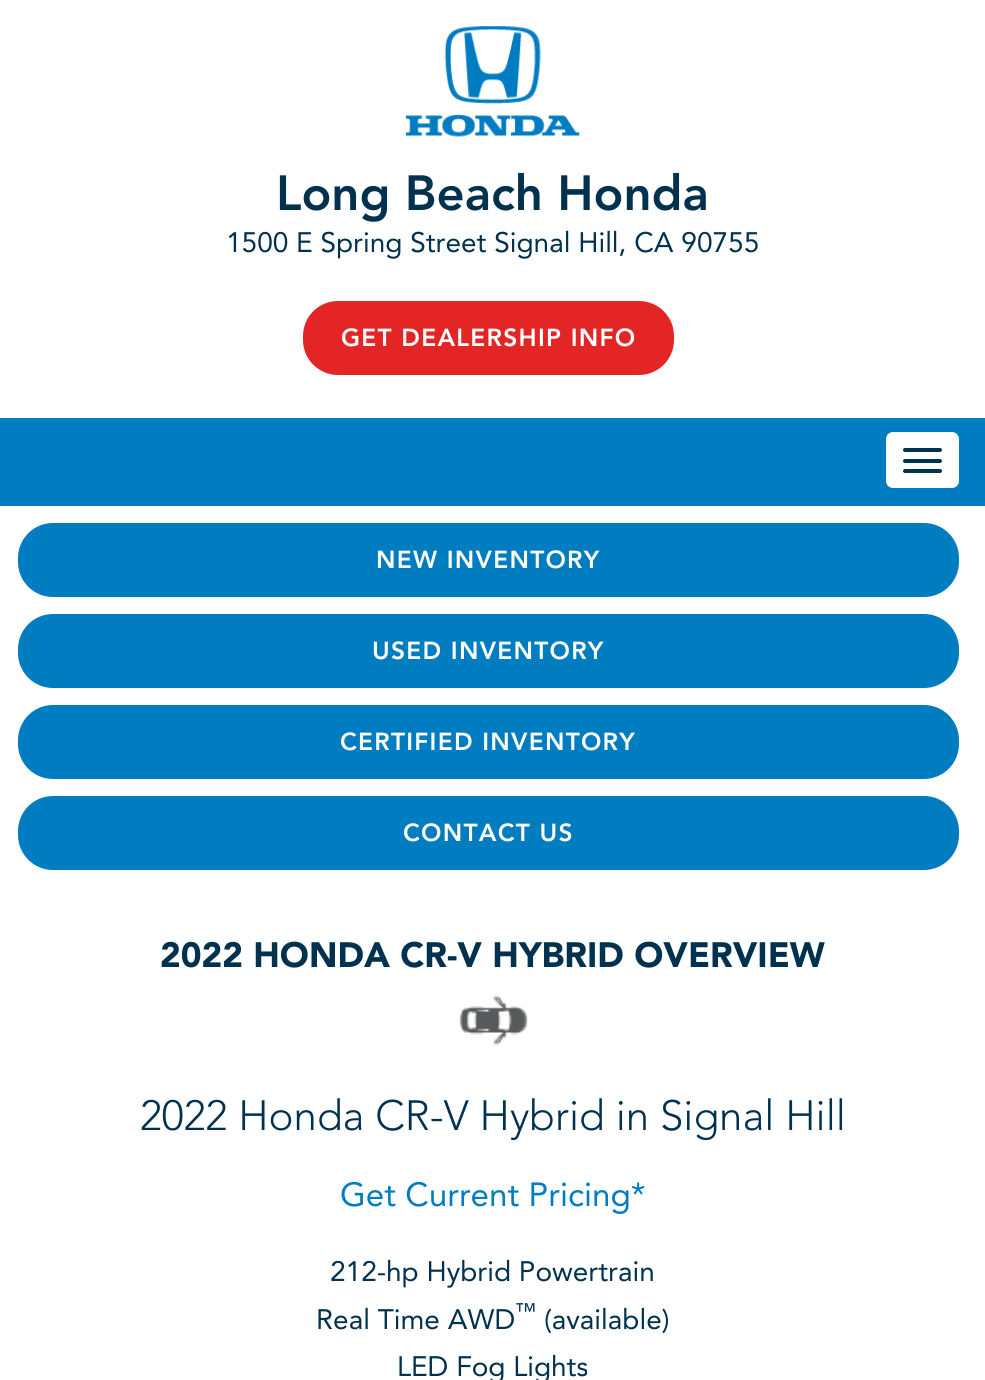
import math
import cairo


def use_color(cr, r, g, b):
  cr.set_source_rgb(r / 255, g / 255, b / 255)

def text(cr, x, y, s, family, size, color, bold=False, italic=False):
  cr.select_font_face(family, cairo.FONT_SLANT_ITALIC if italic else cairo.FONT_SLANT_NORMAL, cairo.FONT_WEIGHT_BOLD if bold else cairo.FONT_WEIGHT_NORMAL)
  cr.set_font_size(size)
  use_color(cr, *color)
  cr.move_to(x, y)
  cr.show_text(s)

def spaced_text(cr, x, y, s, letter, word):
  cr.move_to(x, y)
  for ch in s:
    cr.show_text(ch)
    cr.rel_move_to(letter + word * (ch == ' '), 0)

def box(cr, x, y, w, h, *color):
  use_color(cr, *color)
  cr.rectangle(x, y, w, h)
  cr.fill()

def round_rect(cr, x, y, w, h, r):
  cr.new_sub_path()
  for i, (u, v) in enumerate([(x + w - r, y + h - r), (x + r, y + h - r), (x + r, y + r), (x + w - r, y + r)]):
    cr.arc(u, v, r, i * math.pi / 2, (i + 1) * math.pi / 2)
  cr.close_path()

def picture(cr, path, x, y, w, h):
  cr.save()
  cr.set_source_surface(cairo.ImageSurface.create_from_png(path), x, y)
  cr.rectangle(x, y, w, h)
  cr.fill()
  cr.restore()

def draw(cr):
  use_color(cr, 255, 255, 255)
  cr.paint()
  picture(cr, "img_01.png", 406, 26, 174, 111)
  use_color(cr, 228, 37, 37)
  round_rect(cr, 305, 303, 367, 70, 33)
  cr.fill_preserve()
  cr.set_line_width(4)
  cr.stroke()
  box(cr, 0, 418, 985, 88, 0, 124, 192)
  use_color(cr, 255, 255, 255)
  round_rect(cr, 886, 432, 73, 56, 7)
  cr.fill()
  use_color(cr, 0, 50, 79)
  round_rect(cr, 903, 448, 39, 4, 2)
  cr.fill()
  round_rect(cr, 903, 459, 39, 4, 2)
  cr.fill()
  round_rect(cr, 903, 469, 39, 4, 2)
  cr.fill()
  use_color(cr, 0, 124, 192)
  round_rect(cr, 20, 525, 937, 70, 33)
  cr.fill_preserve()
  cr.stroke()
  round_rect(cr, 20, 616, 937, 70, 33)
  cr.fill_preserve()
  cr.stroke()
  round_rect(cr, 20, 707, 937, 70, 33)
  cr.fill_preserve()
  cr.stroke()
  round_rect(cr, 20, 798, 937, 70, 33)
  cr.fill_preserve()
  cr.stroke()
  picture(cr, "img_02.png", 459, 995, 69, 51)
  text(cr, 276, 210, "Long Beach Honda", "Avenir Black", 49, (0, 50, 79))
  text(cr, 226, 252, "1500 E Spring Street Signal Hill, CA 90755", "Avenir", 28, (0, 50, 79))
  cr.select_font_face("Avenir Black")
  cr.set_font_size(24.5)
  use_color(cr, 255, 255, 255)
  spaced_text(cr, 341, 346, "GET DEALERSHIP INFO", 1.25, 0)
  spaced_text(cr, 376, 568, "NEW INVENTORY", 1.25, 0)
  spaced_text(cr, 372, 659, "USED INVENTORY", 1.25, 0)
  spaced_text(cr, 340, 750, "CERTIFIED INVENTORY", 1.25, 0)
  spaced_text(cr, 403, 841, "CONTACT US", 1.25, 0)
  text(cr, 160, 967, "2022 HONDA CR-V HYBRID OVERVIEW", "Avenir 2 Black", 35, (0, 50, 79))
  text(cr, 140, 1130, "2022 Honda CR-V Hybrid in Signal Hill", "Avenir Light", 42, (0, 50, 79))
  text(cr, 340, 1206, "Get Current Pricing*", "Avenir", 33.25, (0, 124, 194))
  text(cr, 330, 1281, "212-hp Hybrid Powertrain", "Avenir", 28, (0, 50, 79))
  text(cr, 316, 1329, "Real Time AWD", "Avenir", 28, (0, 50, 79))
  text(cr, 515, 1318, "™", "Avenir", 21, (0, 50, 79))
  text(cr, 544, 1329, "(available)", "Avenir", 28, (0, 50, 79))
  text(cr, 397, 1376, "LED Fog Lights", "Avenir", 28, (0, 50, 79))


surface = cairo.ImageSurface(cairo.FORMAT_RGB24, 985, 1380)
cr = cairo.Context(surface)
options = cairo.FontOptions()
options.set_hint_metrics(cairo.HINT_METRICS_OFF)
options.set_hint_style(cairo.HINT_STYLE_NONE)
cr.set_font_options(options)
cr.set_miter_limit(4)
draw(cr)
surface.write_to_png("out.png")
